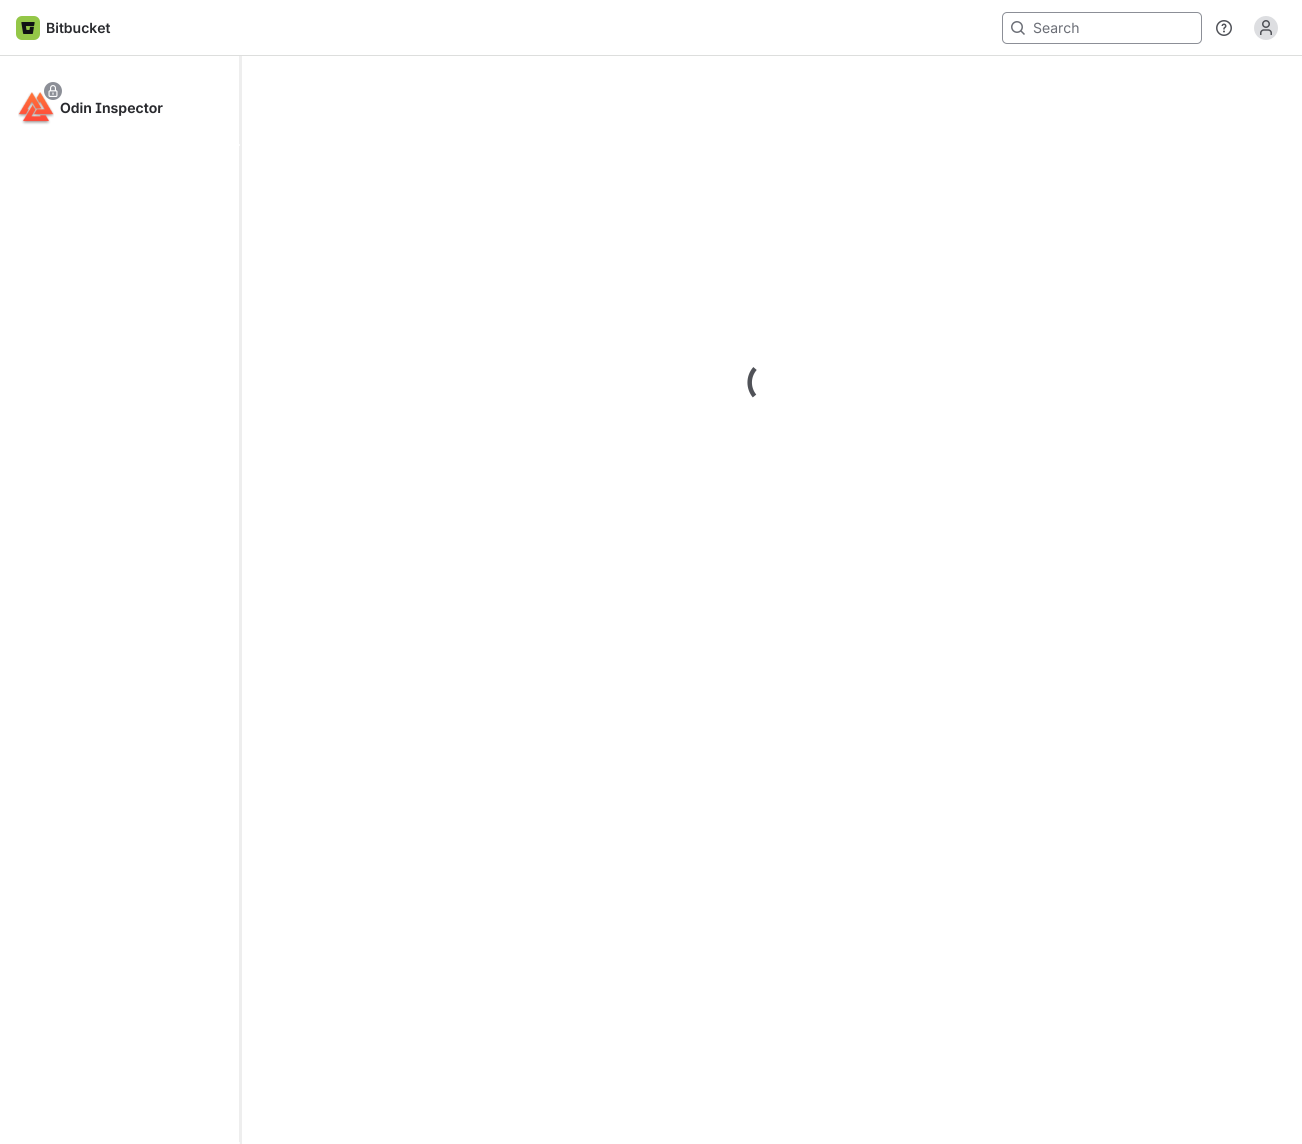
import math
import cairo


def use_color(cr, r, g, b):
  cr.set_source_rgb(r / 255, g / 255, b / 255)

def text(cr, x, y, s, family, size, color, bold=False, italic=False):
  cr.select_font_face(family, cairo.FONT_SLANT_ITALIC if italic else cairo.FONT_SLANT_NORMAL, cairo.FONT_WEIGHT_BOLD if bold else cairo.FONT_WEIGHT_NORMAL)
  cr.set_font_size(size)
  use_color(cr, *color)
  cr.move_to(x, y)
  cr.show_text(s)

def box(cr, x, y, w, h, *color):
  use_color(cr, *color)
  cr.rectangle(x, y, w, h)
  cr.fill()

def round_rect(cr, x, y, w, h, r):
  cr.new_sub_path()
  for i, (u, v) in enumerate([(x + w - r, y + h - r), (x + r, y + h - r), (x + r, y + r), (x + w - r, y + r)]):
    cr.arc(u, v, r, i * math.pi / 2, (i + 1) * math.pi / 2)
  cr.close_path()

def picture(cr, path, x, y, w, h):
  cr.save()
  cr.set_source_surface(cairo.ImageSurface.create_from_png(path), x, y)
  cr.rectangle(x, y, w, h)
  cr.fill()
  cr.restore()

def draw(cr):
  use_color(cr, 255, 255, 255)
  cr.paint()
  box(cr, 0, 55, 1302, 1, 221, 222, 221)
  picture(cr, "img_01.png", 16, 16, 24, 24)
  round_rect(cr, 1002.5, 12.5, 199, 31, 4.5)
  use_color(cr, 140, 143, 151)
  cr.set_line_width(1)
  cr.stroke()
  picture(cr, "img_02.png", 1011, 21, 14, 14)
  picture(cr, "img_03.png", 1216, 20, 16, 16)
  use_color(cr, 221, 222, 225)
  cr.arc(1266, 28, 12, 0, 2 * math.pi)
  cr.fill()
  picture(cr, "img_04.png", 1260, 20, 12, 15)
  picture(cr, "img_06.png", 18, 92, 36, 33)
  use_color(cr, 140, 143, 151)
  cr.arc(53, 91, 9, 0, 2 * math.pi)
  cr.fill()
  picture(cr, "img_05.png", 48, 85, 10, 12)
  box(cr, 239, 56, 3, 1088, 238, 238, 238)
  use_color(cr, 255, 255, 255)
  round_rect(cr, 0, 144, 240, 2, 1)
  cr.fill()
  round_rect(cr, 0, 1142, 240, 2, 1)
  cr.fill()
  cr.new_path()
  cr.move_to(754.5, 396)
  cr.curve_to(748, 388, 748, 376.5, 755, 368.5)
  use_color(cr, 80, 82, 88)
  cr.set_line_width(4.5)
  cr.stroke()
  text(cr, 46, 33, "Bitbucket", "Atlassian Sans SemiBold", 14, (41, 42, 46))
  text(cr, 1033, 33, "Search", "Atlassian Sans", 14, (107, 110, 118))
  text(cr, 60, 113, "Odin Inspector", "Atlassian Sans", 14, (41, 42, 46), bold=True)


surface = cairo.ImageSurface(cairo.FORMAT_RGB24, 1302, 1144)
cr = cairo.Context(surface)
options = cairo.FontOptions()
options.set_hint_metrics(cairo.HINT_METRICS_OFF)
options.set_hint_style(cairo.HINT_STYLE_NONE)
cr.set_font_options(options)
cr.set_miter_limit(4)
draw(cr)
surface.write_to_png("out.png")
